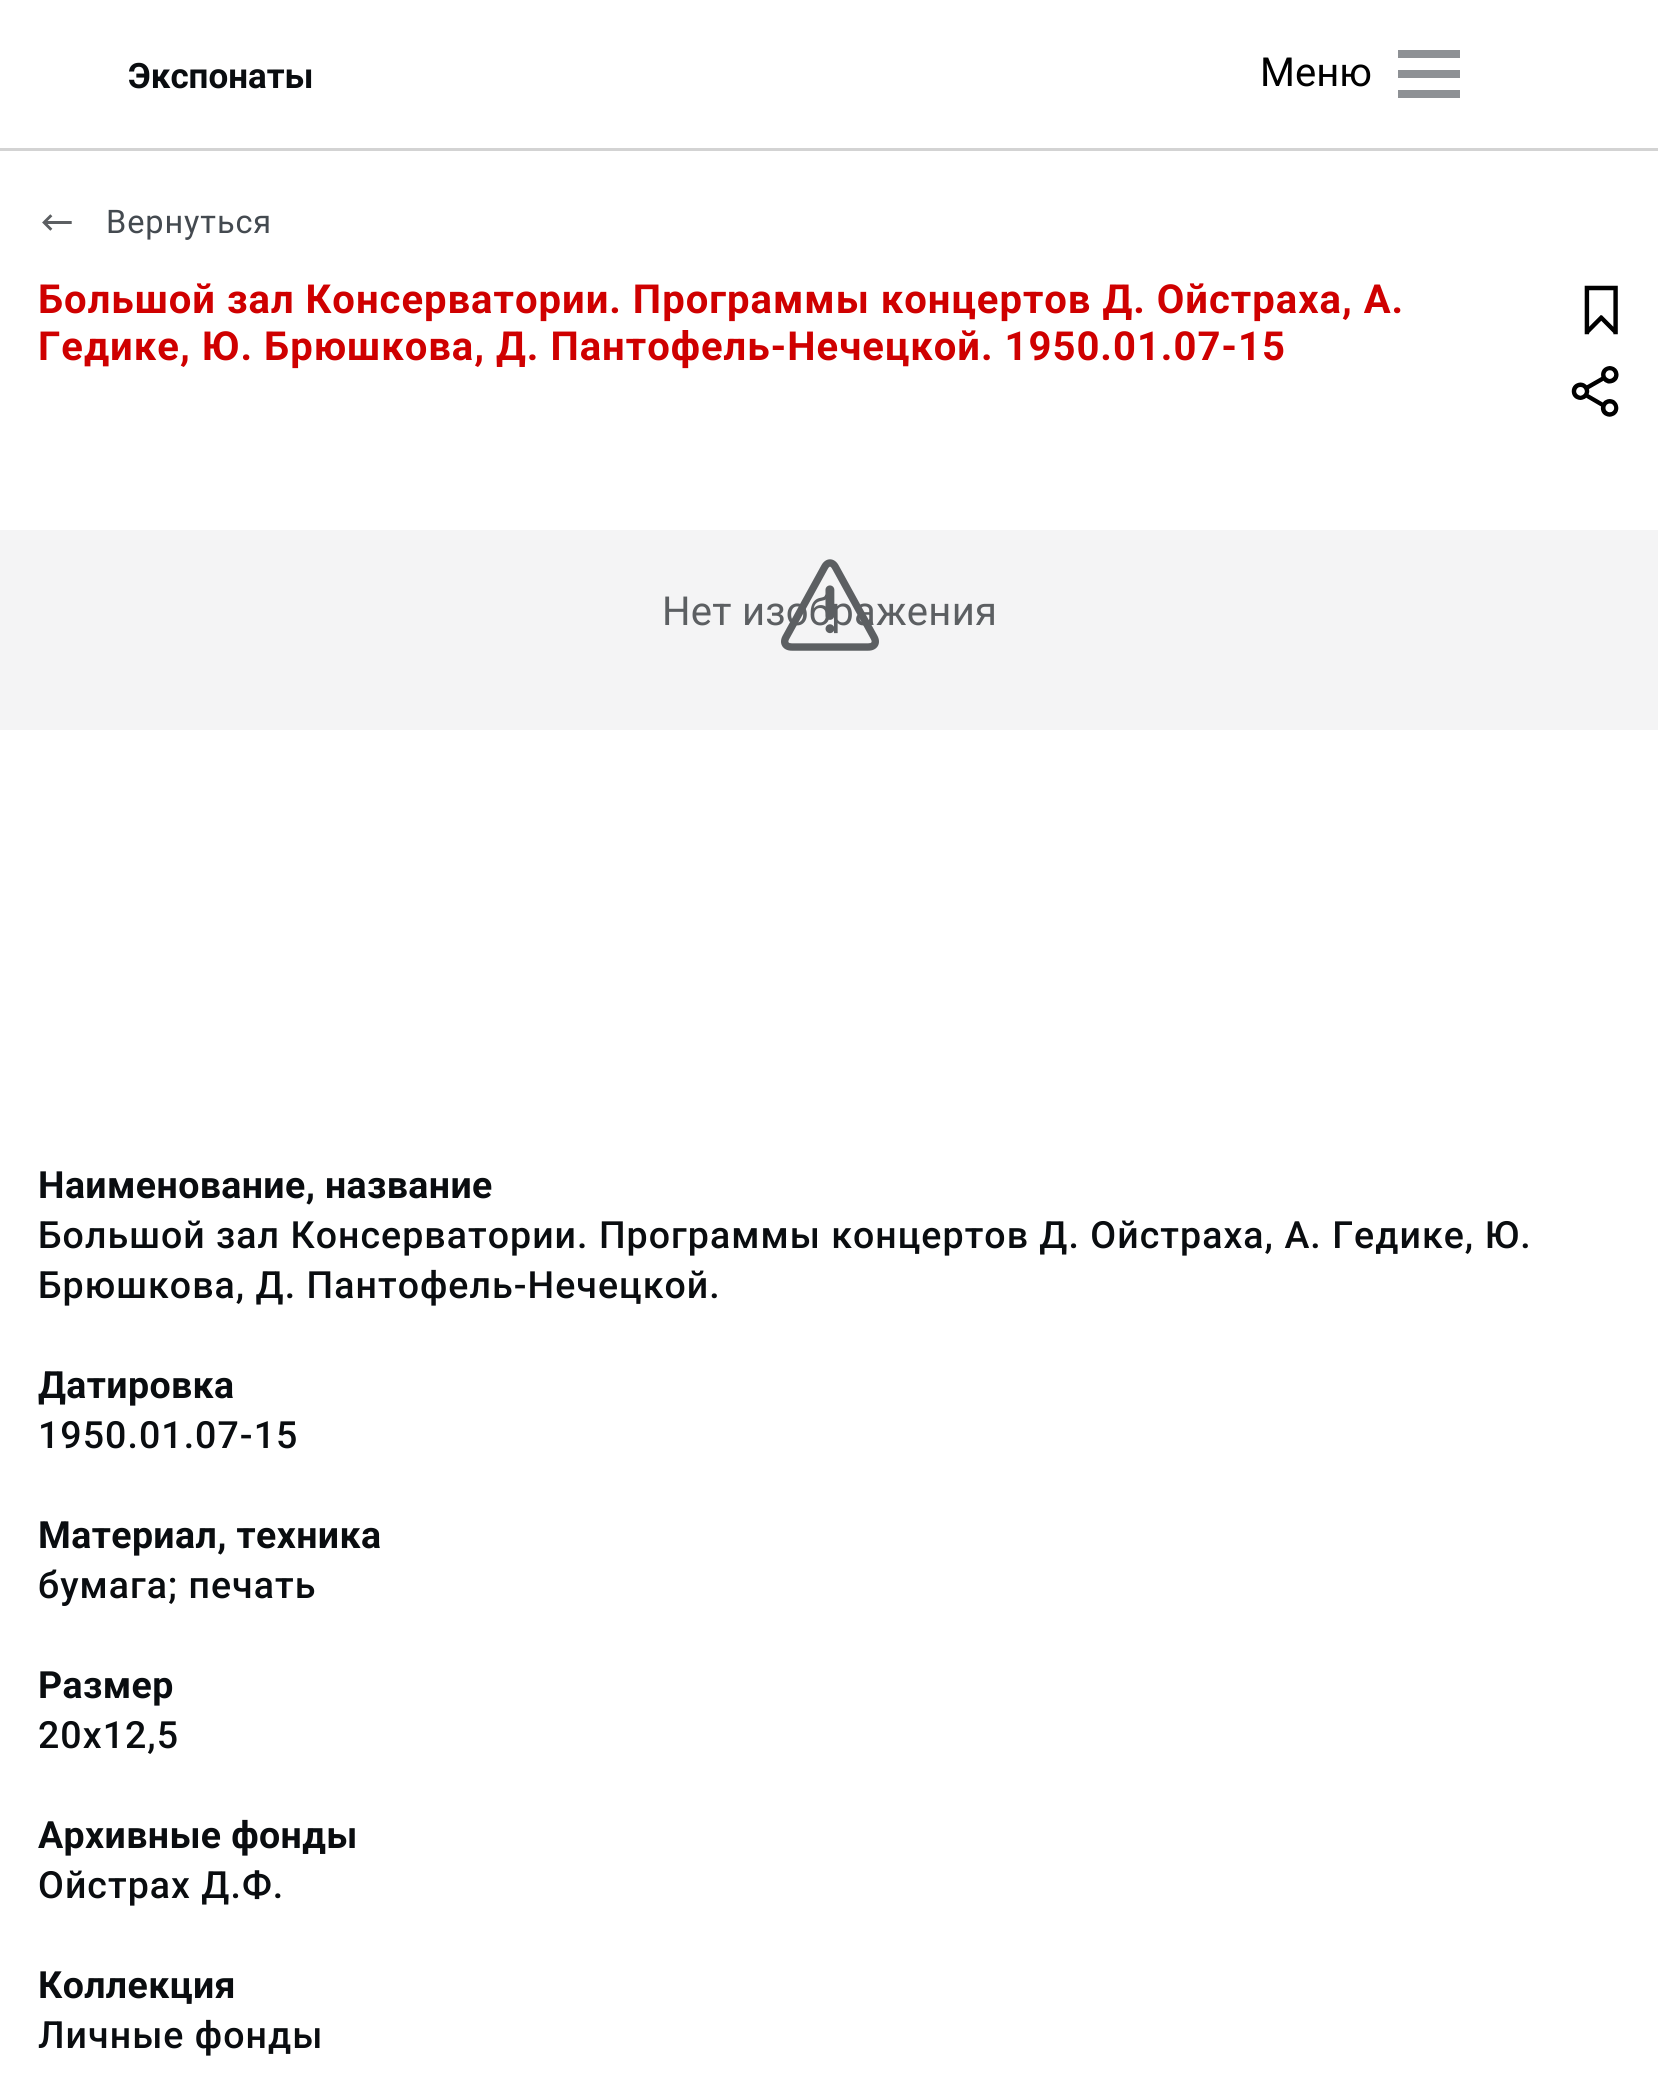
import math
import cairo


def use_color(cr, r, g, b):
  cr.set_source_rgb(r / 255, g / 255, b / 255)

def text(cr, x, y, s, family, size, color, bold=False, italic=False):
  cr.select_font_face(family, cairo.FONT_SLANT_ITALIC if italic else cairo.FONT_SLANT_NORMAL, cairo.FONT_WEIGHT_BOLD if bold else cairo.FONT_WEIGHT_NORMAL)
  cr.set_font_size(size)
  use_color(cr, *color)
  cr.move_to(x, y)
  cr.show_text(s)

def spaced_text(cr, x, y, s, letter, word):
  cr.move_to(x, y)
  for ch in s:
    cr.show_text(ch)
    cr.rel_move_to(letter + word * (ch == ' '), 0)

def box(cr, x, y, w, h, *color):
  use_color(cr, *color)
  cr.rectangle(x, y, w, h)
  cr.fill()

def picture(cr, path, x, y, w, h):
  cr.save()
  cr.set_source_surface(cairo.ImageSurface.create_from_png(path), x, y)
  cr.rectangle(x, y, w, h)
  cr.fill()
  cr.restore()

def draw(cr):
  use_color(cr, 255, 255, 255)
  cr.paint()
  box(cr, 0, 148, 1658, 3, 211, 211, 211)
  box(cr, 1398, 50, 62, 8, 142, 145, 149)
  box(cr, 1398, 70, 62, 8, 142, 145, 149)
  box(cr, 1398, 90, 62, 8, 142, 145, 149)
  picture(cr, "img_01.png", 42, 214, 30, 17)
  box(cr, 0, 530, 1658, 200, 244, 244, 245)
  picture(cr, "img_03.png", 1584, 285, 34, 50)
  picture(cr, "img_04.png", 1571, 366, 48, 51)
  text(cr, 128, 88, "Экспонаты", "Roboto", 35, (10, 13, 16), bold=True)
  text(cr, 1260, 86, "Меню", "Roboto", 40, (0, 0, 0))
  cr.set_font_size(32.5)
  use_color(cr, 68, 74, 80)
  spaced_text(cr, 106, 233, "Вернуться", 0.9, 0)
  cr.select_font_face("Roboto", cairo.FONT_SLANT_NORMAL, cairo.FONT_WEIGHT_BOLD)
  cr.set_font_size(40)
  use_color(cr, 207, 0, 0)
  spaced_text(cr, 38, 313, "Большой зал Консерватории. Программы концертов Д. Ойстраха, А.", 1, 0)
  spaced_text(cr, 38, 360, "Гедике, Ю. Брюшкова, Д. Пантофель-Нечецкой. 1950.01.07-15", 1, 0)
  cr.select_font_face("Roboto")
  use_color(cr, 92, 95, 98)
  spaced_text(cr, 662, 625, "Нет изображения", 0.25, 0)
  picture(cr, "img_02.png", 781, 559, 98, 92)
  cr.select_font_face("Roboto", cairo.FONT_SLANT_NORMAL, cairo.FONT_WEIGHT_BOLD)
  cr.set_font_size(37.5)
  use_color(cr, 10, 13, 16)
  spaced_text(cr, 38, 1198, "Наименование, название", 0.4, 0)
  cr.select_font_face("Roboto Medium")
  spaced_text(cr, 38, 1248, "Большой зал Консерватории. Программы концертов Д. Ойстраха, А. Гедике, Ю.", 1.05, 0)
  spaced_text(cr, 38, 1298, "Брюшкова, Д. Пантофель-Нечецкой.", 1.05, 0)
  cr.select_font_face("Roboto", cairo.FONT_SLANT_NORMAL, cairo.FONT_WEIGHT_BOLD)
  spaced_text(cr, 38, 1398, "Датировка", 0.4, 0)
  cr.select_font_face("Roboto Medium")
  spaced_text(cr, 38, 1448, "1950.01.07-15", 1.05, 0)
  cr.select_font_face("Roboto", cairo.FONT_SLANT_NORMAL, cairo.FONT_WEIGHT_BOLD)
  spaced_text(cr, 38, 1548, "Материал, техника", 0.4, 0)
  cr.select_font_face("Roboto Medium")
  spaced_text(cr, 38, 1598, "бумага; печать", 1.05, 0)
  cr.select_font_face("Roboto", cairo.FONT_SLANT_NORMAL, cairo.FONT_WEIGHT_BOLD)
  spaced_text(cr, 38, 1698, "Размер", 0.4, 0)
  cr.select_font_face("Roboto Medium")
  spaced_text(cr, 38, 1748, "20х12,5", 1.05, 0)
  cr.select_font_face("Roboto", cairo.FONT_SLANT_NORMAL, cairo.FONT_WEIGHT_BOLD)
  spaced_text(cr, 38, 1848, "Архивные фонды", 0.4, 0)
  cr.select_font_face("Roboto Medium")
  spaced_text(cr, 38, 1898, "Ойстрах Д.Ф.", 1.05, 0)
  cr.select_font_face("Roboto", cairo.FONT_SLANT_NORMAL, cairo.FONT_WEIGHT_BOLD)
  spaced_text(cr, 38, 1998, "Коллекция", 0.4, 0)
  cr.select_font_face("Roboto Medium")
  spaced_text(cr, 38, 2048, "Личные фонды", 1.05, 0)


surface = cairo.ImageSurface(cairo.FORMAT_RGB24, 1658, 2073)
cr = cairo.Context(surface)
options = cairo.FontOptions()
options.set_hint_metrics(cairo.HINT_METRICS_OFF)
options.set_hint_style(cairo.HINT_STYLE_NONE)
cr.set_font_options(options)
cr.set_miter_limit(4)
draw(cr)
surface.write_to_png("out.png")
